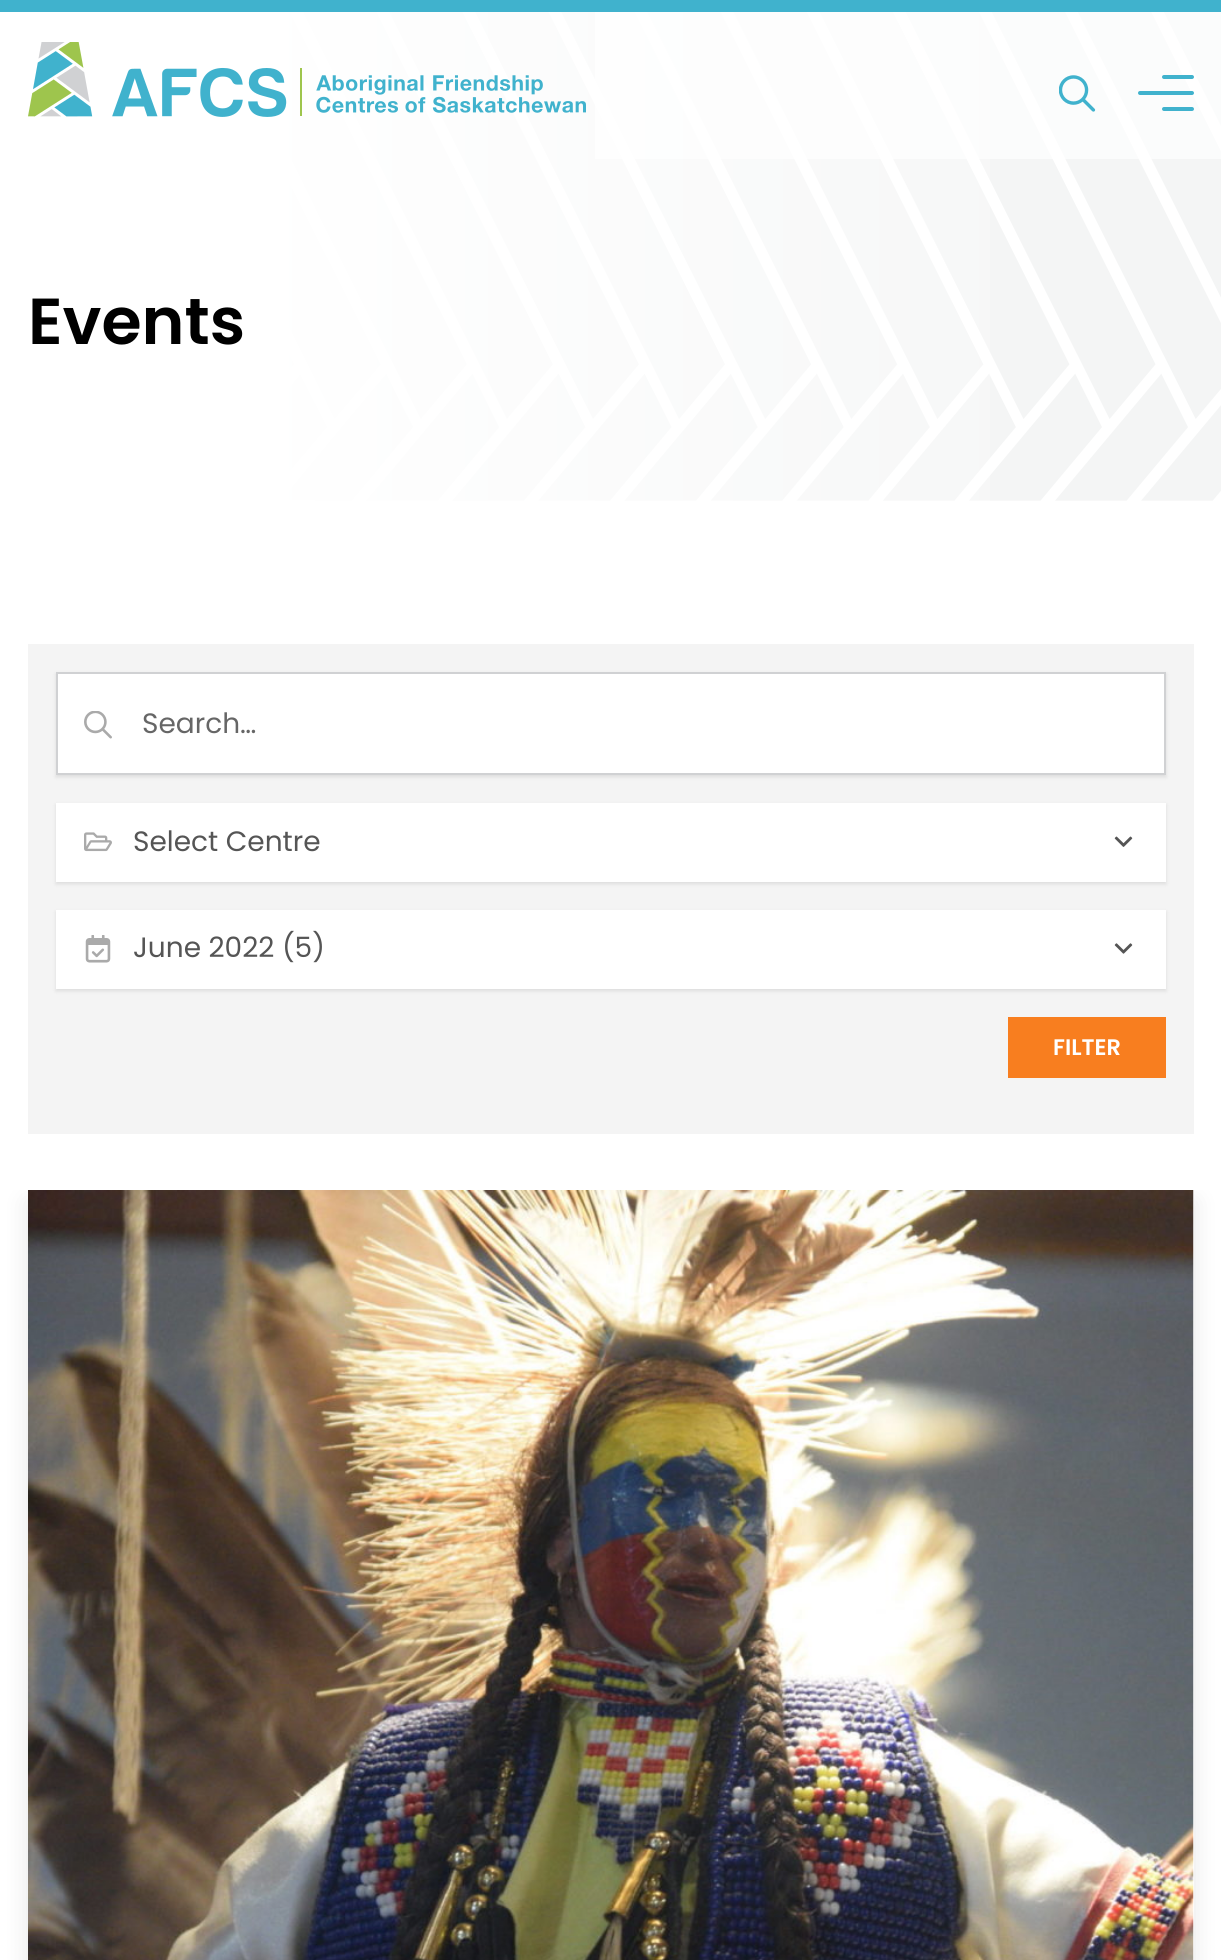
import math
import cairo


def use_color(cr, r, g, b):
  cr.set_source_rgb(r / 255, g / 255, b / 255)

def text(cr, x, y, s, family, size, color, bold=False, italic=False):
  cr.select_font_face(family, cairo.FONT_SLANT_ITALIC if italic else cairo.FONT_SLANT_NORMAL, cairo.FONT_WEIGHT_BOLD if bold else cairo.FONT_WEIGHT_NORMAL)
  cr.set_font_size(size)
  use_color(cr, *color)
  cr.move_to(x, y)
  cr.show_text(s)

def box(cr, x, y, w, h, *color):
  use_color(cr, *color)
  cr.rectangle(x, y, w, h)
  cr.fill()

def round_rect(cr, x, y, w, h, r):
  cr.new_sub_path()
  for i, (u, v) in enumerate([(x + w - r, y + h - r), (x + r, y + h - r), (x + r, y + r), (x + w - r, y + r)]):
    cr.arc(u, v, r, i * math.pi / 2, (i + 1) * math.pi / 2)
  cr.close_path()

def shadow(cr, x, y, w, h, r, blur, alpha):
  cr.push_group_with_content(cairo.CONTENT_ALPHA)
  cr.set_operator(cairo.OPERATOR_SOURCE)
  for i in range(15, -16, -2):
    e = blur * i / 6
    if min(w, h) + 2 * e > 0:
      cr.set_source_rgba(0, 0, 0, alpha * math.erfc((i - 1) / 8.5) / 2)
      round_rect(cr, x - e, y - e, w + 2 * e, h + 2 * e, max(0, min(r + e + blur * .6, min(w, h) / 2 + e)))
      cr.fill()
  cr.mask(cr.pop_group())

def picture(cr, path, x, y, w, h):
  cr.save()
  cr.set_source_surface(cairo.ImageSurface.create_from_png(path), x, y)
  cr.rectangle(x, y, w, h)
  cr.fill()
  cr.restore()

def draw(cr):
  use_color(cr, 255, 255, 255)
  cr.paint()
  picture(cr, "img_03.png", 250, 12, 971, 489)
  gradient = cairo.LinearGradient(0, 252, 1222, 252)
  gradient.add_color_stop_rgba(0.2, 1, 1, 1, 1)
  gradient.add_color_stop_rgba(1, 1, 1, 1, 0)
  cr.set_source(gradient)
  cr.rectangle(250, 12, 740, 489)
  cr.fill()
  cr.set_source_rgba(1, 1, 1, 0.65)
  cr.rectangle(595, 12, 626, 147)
  cr.fill()
  box(cr, 0, 0, 1221, 12, 64, 178, 205)
  picture(cr, "img_01.png", 28, 42, 558, 75)
  picture(cr, "img_02.png", 1059, 75, 37, 37)
  round_rect(cr, 1162, 75, 32, 4, 2)
  cr.fill()
  round_rect(cr, 1138, 91, 56, 4, 2)
  cr.fill()
  round_rect(cr, 1162, 107, 32, 4, 2)
  cr.fill()
  box(cr, 28, 644, 1166, 490, 244, 244, 244)
  use_color(cr, 0, 0, 0)
  shadow(cr, 56, 674, 1110, 103, 0, 2, 0.1)
  use_color(cr, 255, 255, 255)
  cr.rectangle(57, 673, 1108, 101)
  cr.fill_preserve()
  use_color(cr, 208, 209, 211)
  cr.stroke()
  picture(cr, "img_04.png", 84, 711, 28, 28)
  use_color(cr, 0, 0, 0)
  shadow(cr, 56, 805, 1110, 79, 0, 2, 0.1)
  box(cr, 56, 803, 1110, 79, 255, 255, 255)
  picture(cr, "img_05.png", 84, 832, 28, 20)
  picture(cr, "img_06.png", 1114, 836, 19, 11)
  use_color(cr, 0, 0, 0)
  shadow(cr, 56, 912, 1110, 79, 0, 2, 0.1)
  box(cr, 56, 910, 1110, 79, 255, 255, 255)
  picture(cr, "img_07.png", 85, 935, 26, 28)
  picture(cr, "img_08.png", 1114, 943, 19, 11)
  gradient = cairo.LinearGradient(796, 914, 1063, 1181)
  gradient.add_color_stop_rgba(0, 0.475, 0.788, 0.863, 1)
  gradient.add_color_stop_rgba(0.2, 0.251, 0.698, 0.804, 1)
  gradient.add_color_stop_rgba(0.5, 0.251, 0.698, 0.804, 1)
  gradient.add_color_stop_rgba(0.5, 0.973, 0.494, 0.122, 1)
  cr.set_source(gradient)
  cr.rectangle(1008, 1017, 158, 61)
  cr.fill()
  picture(cr, "img_09.png", 28, 1190, 1166, 770)
  cr.save()
  cr.rectangle(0, 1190, 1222, 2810)
  cr.clip()
  cr.set_fill_rule(cairo.FILL_RULE_EVEN_ODD)
  cr.new_path()
  cr.move_to(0, 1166)
  cr.line_to(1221, 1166)
  cr.line_to(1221, 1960)
  cr.line_to(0, 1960)
  cr.close_path()
  cr.move_to(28, 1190)
  cr.line_to(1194, 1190)
  cr.line_to(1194, 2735)
  cr.line_to(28, 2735)
  cr.close_path()
  cr.clip()
  use_color(cr, 207, 207, 207)
  shadow(cr, 28, 1202, 1166, 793, 0, 11.5, 0.5)
  cr.restore()
  text(cr, 28, 344, "Events", "Poppins SemiBold", 65, (0, 0, 0))
  text(cr, 142, 733, "Search…", "Poppins", 28, (102, 102, 102))
  text(cr, 133, 851, "Select Centre", "Poppins", 28, (85, 85, 85))
  text(cr, 133, 957, "June 2022 (5)", "Poppins", 28, (85, 85, 85))
  text(cr, 1053, 1055, "FILTER", "Poppins SemiBold", 22.5, (255, 255, 255))


surface = cairo.ImageSurface(cairo.FORMAT_RGB24, 1221, 1960)
cr = cairo.Context(surface)
options = cairo.FontOptions()
options.set_hint_metrics(cairo.HINT_METRICS_OFF)
options.set_hint_style(cairo.HINT_STYLE_NONE)
cr.set_font_options(options)
cr.set_miter_limit(4)
draw(cr)
surface.write_to_png("out.png")
